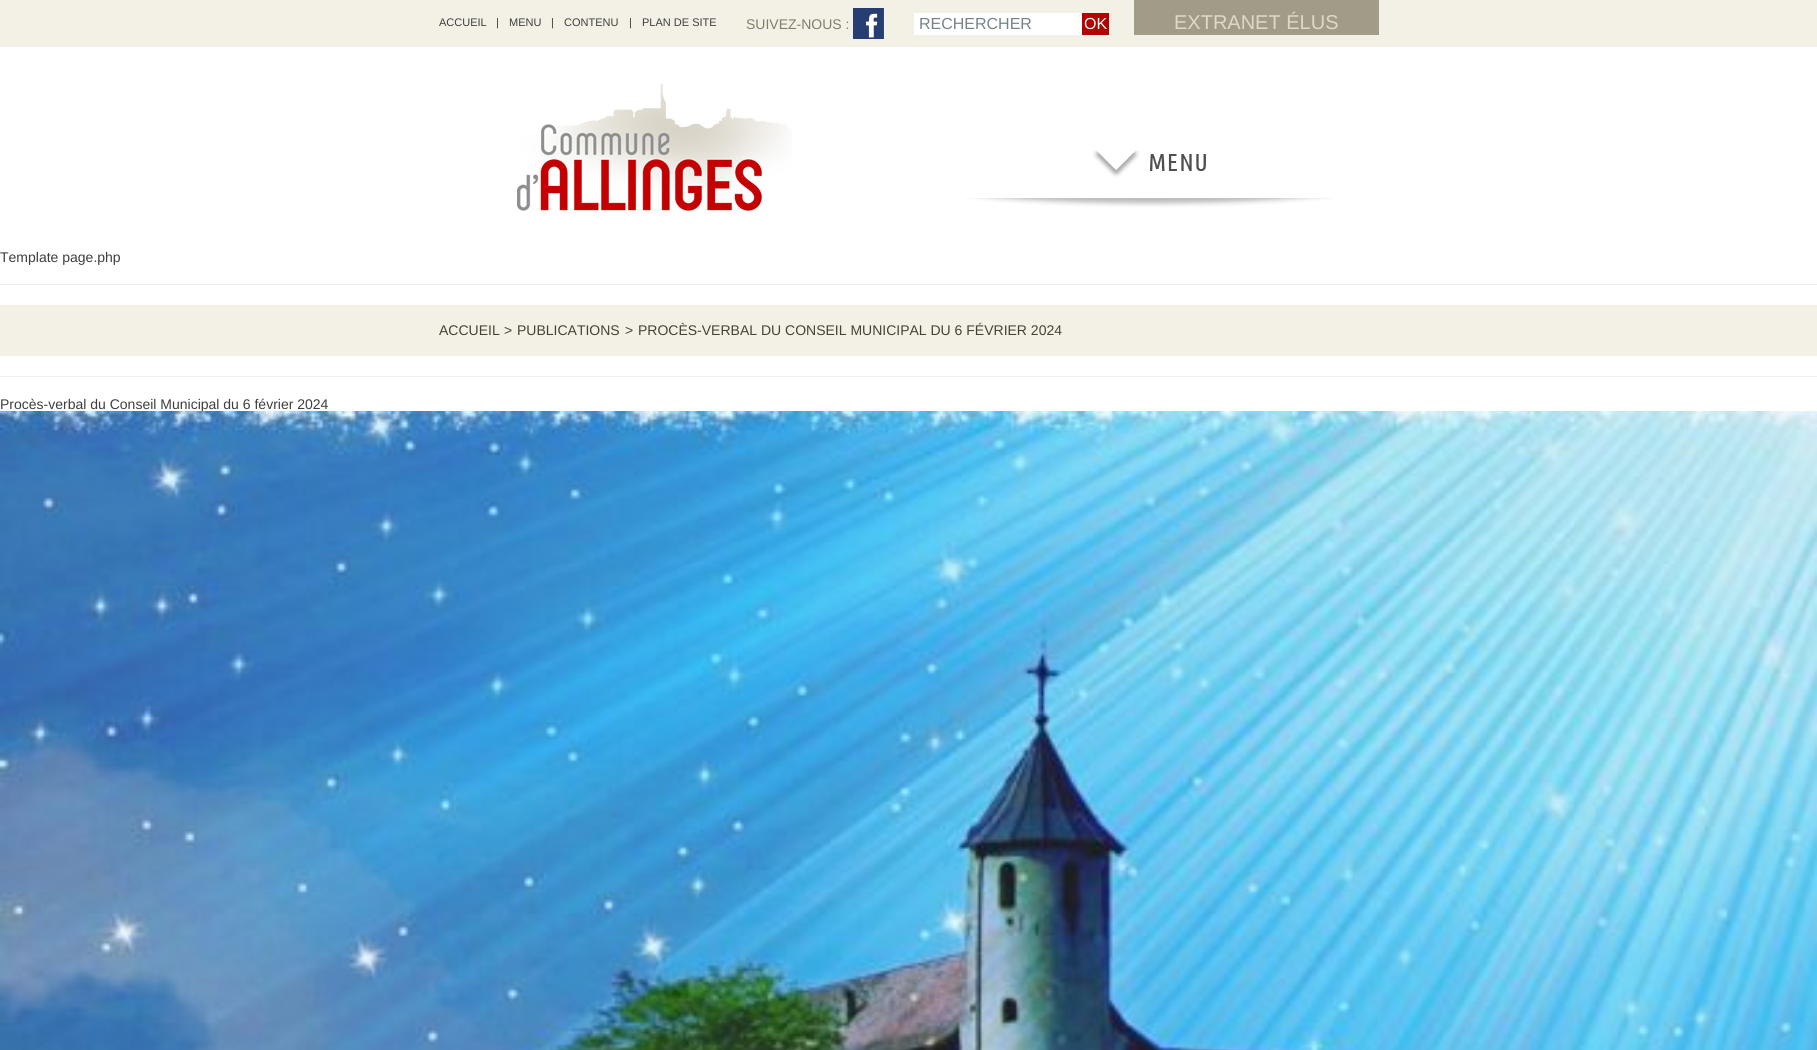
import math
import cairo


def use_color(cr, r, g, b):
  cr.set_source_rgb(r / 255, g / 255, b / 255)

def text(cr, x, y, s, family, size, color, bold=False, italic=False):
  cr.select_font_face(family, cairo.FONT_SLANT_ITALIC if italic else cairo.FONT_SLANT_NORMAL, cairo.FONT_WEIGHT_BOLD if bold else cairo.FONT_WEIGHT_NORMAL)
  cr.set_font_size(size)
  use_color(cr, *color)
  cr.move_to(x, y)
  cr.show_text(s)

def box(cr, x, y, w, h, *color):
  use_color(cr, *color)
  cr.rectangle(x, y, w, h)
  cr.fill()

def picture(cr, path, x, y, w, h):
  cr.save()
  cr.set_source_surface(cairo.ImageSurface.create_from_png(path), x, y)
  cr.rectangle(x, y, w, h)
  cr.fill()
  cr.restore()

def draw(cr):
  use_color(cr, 255, 255, 255)
  cr.paint()
  box(cr, 0, 0, 1817, 47, 243, 240, 230)
  picture(cr, "img_01.png", 853, 8, 31, 31)
  box(cr, 914, 13, 168, 22, 255, 255, 255)
  box(cr, 1082, 13, 27, 22, 180, 0, 0)
  box(cr, 1134, 0, 245, 35, 162, 155, 135)
  picture(cr, "img_02.png", 514, 84, 278, 127)
  picture(cr, "img_03.png", 966, 150, 367, 57)
  box(cr, 0, 284, 1817, 1, 238, 238, 238)
  box(cr, 0, 305, 1817, 51, 243, 240, 230)
  box(cr, 0, 376, 1817, 1, 238, 238, 238)
  text(cr, 439, 26, "ACCUEIL", "Liberation Sans", 11, (62, 62, 62))
  text(cr, 496, 26, "|", "Liberation Sans", 11, (62, 62, 62))
  text(cr, 509, 26, "MENU", "Liberation Sans", 11, (62, 62, 62))
  text(cr, 551, 26, "|", "Liberation Sans", 11, (62, 62, 62))
  text(cr, 564, 26, "CONTENU", "Liberation Sans", 11, (62, 62, 62))
  text(cr, 629, 26, "|", "Liberation Sans", 11, (62, 62, 62))
  text(cr, 642, 26, "PLAN DE SITE", "Liberation Sans", 11, (62, 62, 62))
  text(cr, 746, 29, "SUIVEZ-NOUS :", "Liberation Sans", 14, (131, 124, 105))
  text(cr, 919, 29, "RECHERCHER", "Liberation Sans", 16, (117, 132, 138))
  text(cr, 1084, 29, "OK", "Liberation Sans", 16, (255, 255, 255))
  text(cr, 1174, 29, "EXTRANET ÉLUS", "Liberation Sans", 20, (222, 216, 199))
  text(cr, 0, 262, "Template page.php", "Liberation Sans", 14, (62, 62, 62))
  text(cr, 439, 335, "ACCUEIL", "Liberation Sans", 14, (71, 66, 53))
  text(cr, 504, 335, ">", "Liberation Sans", 14, (71, 66, 53))
  text(cr, 517, 335, "PUBLICATIONS", "Liberation Sans", 14, (71, 66, 53))
  text(cr, 625, 335, ">", "Liberation Sans", 14, (71, 66, 53))
  text(cr, 638, 335, "PROCÈS-VERBAL DU CONSEIL MUNICIPAL DU 6 FÉVRIER 2024", "Liberation Sans", 14, (71, 66, 53))
  text(cr, 0, 409, "Procès-verbal du Conseil Municipal du 6 février 2024", "Liberation Sans", 14, (62, 62, 62))
  picture(cr, "img_04.png", 0, 411, 1817, 639)


surface = cairo.ImageSurface(cairo.FORMAT_RGB24, 1817, 1050)
cr = cairo.Context(surface)
options = cairo.FontOptions()
options.set_hint_metrics(cairo.HINT_METRICS_OFF)
options.set_hint_style(cairo.HINT_STYLE_NONE)
cr.set_font_options(options)
cr.set_miter_limit(4)
draw(cr)
surface.write_to_png("out.png")
